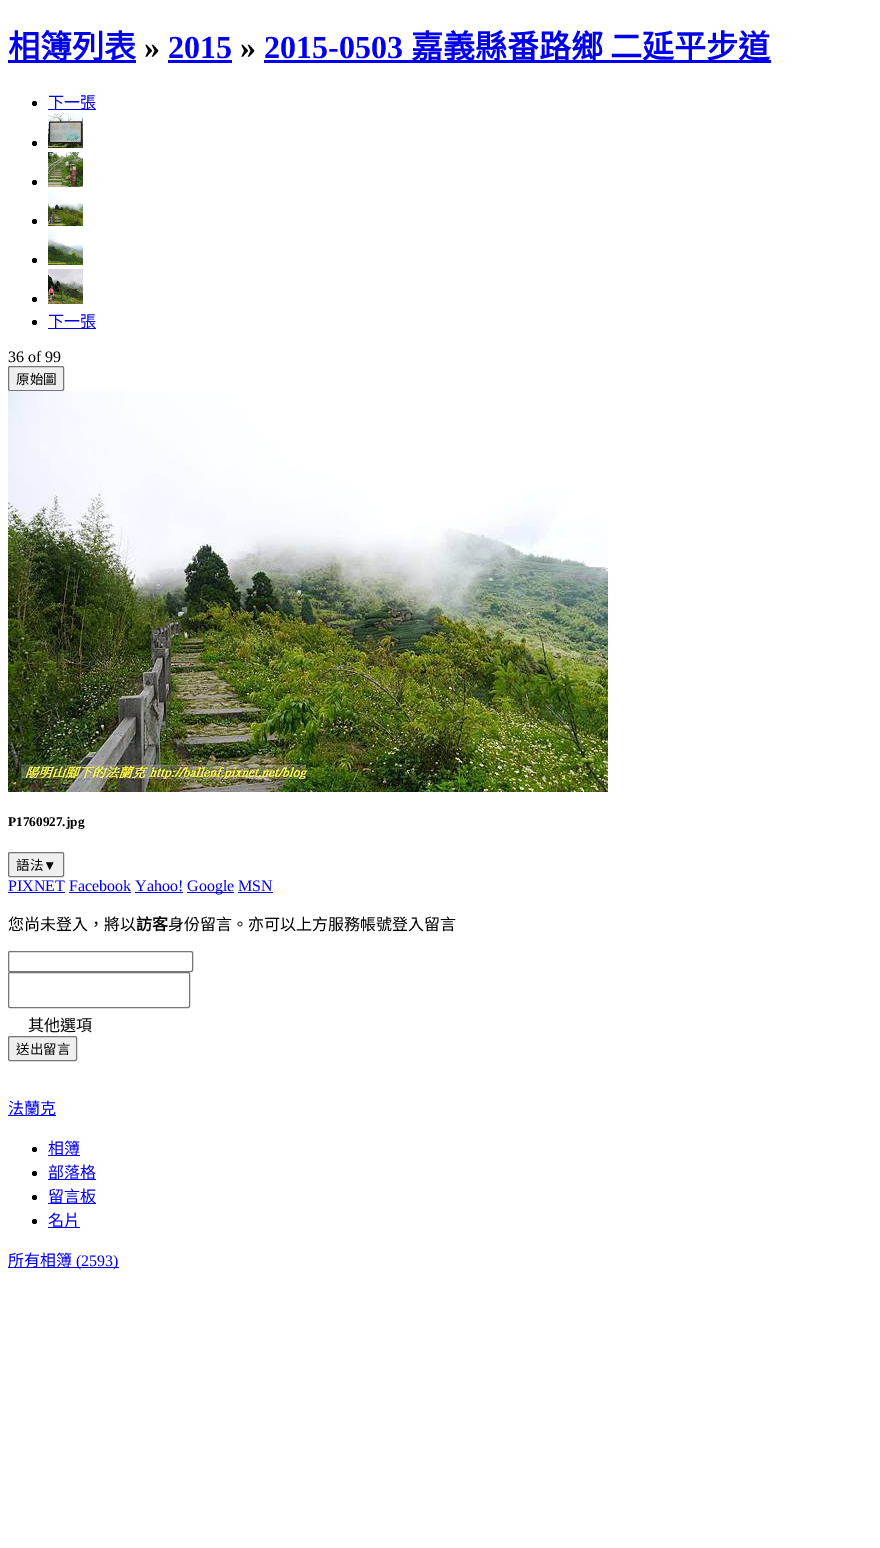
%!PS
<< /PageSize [880 1548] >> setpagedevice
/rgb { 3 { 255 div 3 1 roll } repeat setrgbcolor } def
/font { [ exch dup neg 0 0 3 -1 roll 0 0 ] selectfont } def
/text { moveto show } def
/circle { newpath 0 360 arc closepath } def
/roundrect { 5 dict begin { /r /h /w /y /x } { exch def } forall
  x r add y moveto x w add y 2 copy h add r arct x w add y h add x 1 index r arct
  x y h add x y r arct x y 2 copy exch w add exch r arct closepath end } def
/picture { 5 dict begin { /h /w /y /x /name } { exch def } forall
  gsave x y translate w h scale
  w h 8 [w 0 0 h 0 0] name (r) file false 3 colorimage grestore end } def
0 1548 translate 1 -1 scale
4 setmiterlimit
255 255 255 rgb
0 0 880 1548 rectfill
0 0 238 rgb
8 60 128 3 rectfill
168 60 64 3 rectfill
264 60 507 3 rectfill
0 0 0 rgb
34.5 103.5 2.5 circle fill
0 0 238 rgb
48 109 48 1 rectfill
0 0 0 rgb
34.5 143.5 2.5 circle fill
(img_01.rgb) 48 113 35 35 picture
34.5 182.5 2.5 circle fill
(img_02.rgb) 48 152 35 35 picture
34.5 221.5 2.5 circle fill
(img_03.rgb) 48 191 35 35 picture
34.5 260.5 2.5 circle fill
(img_04.rgb) 48 230 35 35 picture
34.5 299.5 2.5 circle fill
(img_05.rgb) 48 269 35 35 picture
34.5 322.5 2.5 circle fill
0 0 238 rgb
48 328 48 1 rectfill
239 239 239 rgb
8.5 366.5 55 24 1.5 roundrect gsave fill grestore
118 118 118 rgb
stroke
(img_06.rgb) 8 391 600 401 picture
239 239 239 rgb
8.5 852.5 55 24 1.5 roundrect gsave fill grestore
118 118 118 rgb
stroke
0 0 238 rgb
8 892 57 1 rectfill
187 892 47 1 rectfill
69 892 62 1 rectfill
135 892 48 1 rectfill
238 892 35 1 rectfill
118 118 118 rgb
8.5 951.5 184 20 1.5 roundrect stroke
8.5 972.5 181 35 1.5 roundrect stroke
239 239 239 rgb
8.5 1036.5 68 24 1.5 roundrect gsave fill grestore
118 118 118 rgb
stroke
0 0 238 rgb
8 1115 48 1 rectfill
0 0 0 rgb
34.5 1149.5 2.5 circle fill
0 0 238 rgb
48 1155 32 1 rectfill
0 0 0 rgb
34.5 1173.5 2.5 circle fill
0 0 238 rgb
48 1179 48 1 rectfill
0 0 0 rgb
34.5 1197.5 2.5 circle fill
0 0 238 rgb
48 1203 48 1 rectfill
0 0 0 rgb
34.5 1221.5 2.5 circle fill
0 0 238 rgb
48 1227 32 1 rectfill
8 1267 111 1 rectfill
/NotoSansCJKTC-Bold 32 font
(相簿列表) 8 58 text
/LiberationSerif-Bold 32 font
0 0 0 rgb
(») 144 58 text
0 0 238 rgb
(2015) 168 58 text
0 0 0 rgb
(») 240 58 text
0 0 238 rgb
(2015-0503) 264 58 text
/NotoSansCJKTC-Bold 32 font
(嘉義縣番路鄉 二延平步道) 411 58 text
/NotoSansCJKTC-Regular 16 font
(下一張) 48 108 text
(下一張) 48 327 text
/LiberationSerif-Regular 16 font
0 0 0 rgb
(36 of 99) 8 362 text
/NotoSansCJKTC-Regular 13.5 font
(原始圖) 16 384 text
/LiberationSerif-Bold 13.25 font
(P1760927.jpg) 8 826 text
/NotoSansCJKTC-Regular 13.5 font
(語法) 16 870 text
/LiberationSans-Regular 13.5 font
(▼) 43 870 text
/LiberationSerif-Regular 16 font
0 0 238 rgb
(PIXNET Facebook Yahoo!) 8 891 text
(Google MSN) 187 891 text
/NotoSansCJKTC-Regular 16 font
0 0 0 rgb
(您尚未登入，將以) 8 930 text
/NotoSansCJKTC-Bold 16 font
(訪客) 136 930 text
/NotoSansCJKTC-Regular 16 font
(身份留言。亦可以上方服務帳號登入留言) 168 930 text
(其他選項) 28 1031 text
/NotoSansCJKTC-Regular 13.5 font
(送出留言) 16 1054 text
/NotoSansCJKTC-Regular 16 font
0 0 238 rgb
(法蘭克) 8 1114 text
(相簿) 48 1154 text
(部落格) 48 1178 text
(留言板) 48 1202 text
(名片) 48 1226 text
(所有相簿) 8 1266 text
/LiberationSerif-Regular 16 font
(\(2593\)) 76 1266 text
showpage
